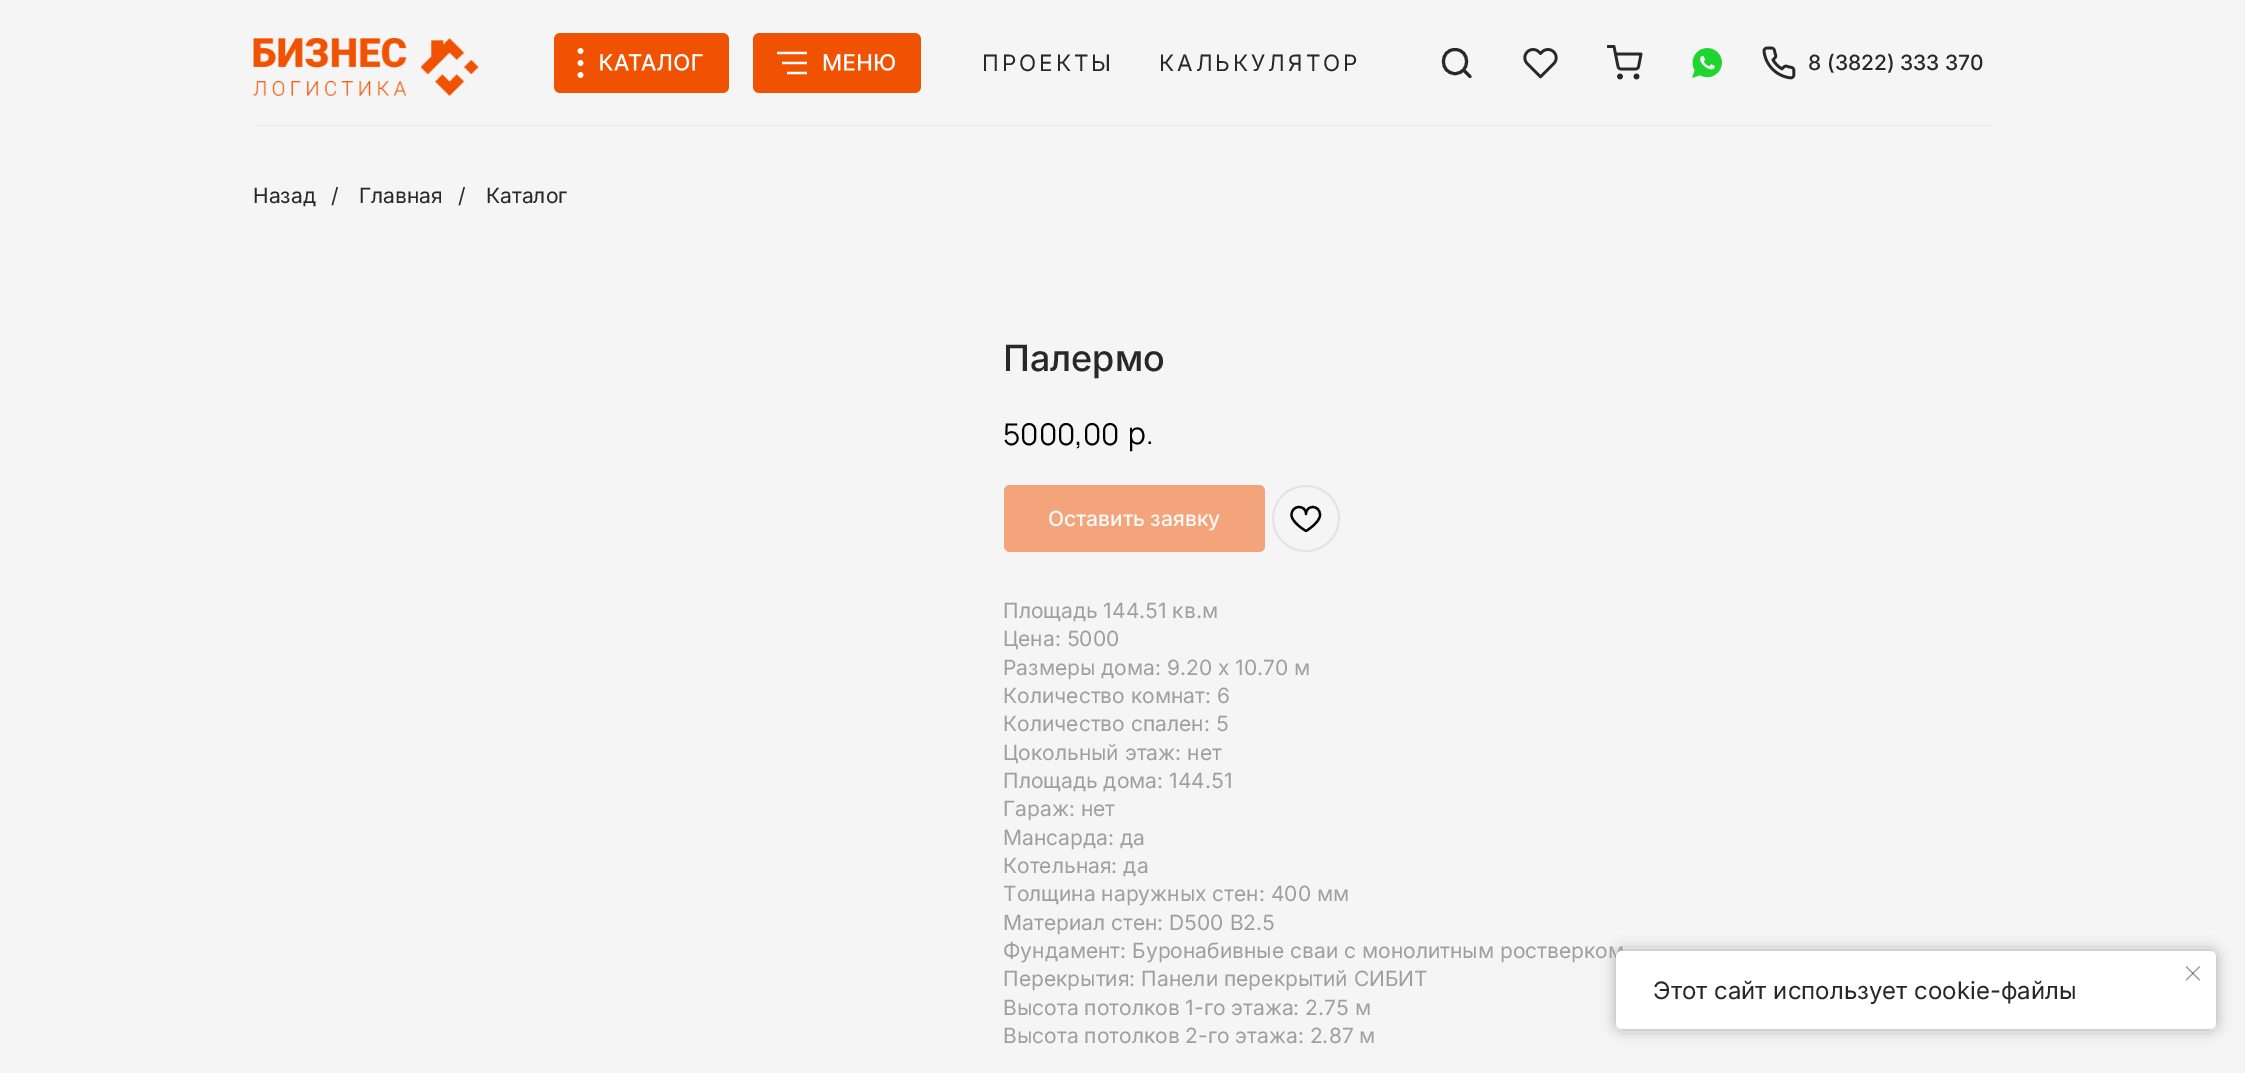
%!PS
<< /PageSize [2245 1073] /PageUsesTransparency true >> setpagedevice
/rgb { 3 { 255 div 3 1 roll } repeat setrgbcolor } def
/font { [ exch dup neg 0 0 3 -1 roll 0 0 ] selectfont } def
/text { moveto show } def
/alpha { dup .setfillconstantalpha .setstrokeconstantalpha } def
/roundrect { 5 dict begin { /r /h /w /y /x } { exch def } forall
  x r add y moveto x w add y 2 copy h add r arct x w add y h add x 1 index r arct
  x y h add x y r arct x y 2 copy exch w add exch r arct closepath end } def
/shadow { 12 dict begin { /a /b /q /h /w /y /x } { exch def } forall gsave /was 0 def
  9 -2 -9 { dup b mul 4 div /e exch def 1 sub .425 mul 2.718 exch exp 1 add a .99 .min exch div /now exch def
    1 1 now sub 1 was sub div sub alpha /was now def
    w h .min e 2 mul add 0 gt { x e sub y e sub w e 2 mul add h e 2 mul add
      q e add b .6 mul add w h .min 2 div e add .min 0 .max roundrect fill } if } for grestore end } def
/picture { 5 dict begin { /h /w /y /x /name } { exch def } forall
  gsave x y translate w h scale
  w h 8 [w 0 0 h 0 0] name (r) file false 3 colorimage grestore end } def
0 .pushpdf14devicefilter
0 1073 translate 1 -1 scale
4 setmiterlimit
245 245 245 rgb
0 0 2245 1073 rectfill
(img_01.rgb) 253 38 226 58 picture
(img_02.rgb) 554 33 175 60 picture
(img_03.rgb) 753 33 168 60 picture
40 40 40 rgb
3 setlinewidth
1 setlinecap
1 setlinejoin
1455 73.5 moveto 15.5 0 15.5 -24 0 -24 rcurveto -15.5 0 -15.5 24 0 24 rcurveto closepath 1470 76.5 moveto -6.5 -6.5 rlineto stroke
(img_04.rgb) 1523 48 35 31 picture
(img_05.rgb) 1607 45 36 35 picture
(img_06.rgb) 1692 48 30 30 picture
(img_07.rgb) 1762 46 34 34 picture
233 233 233 rgb
254 125 1740 1 rectfill
243 164 123 rgb
1004 485 261 67 6 roundrect fill
228 228 228 rgb
2 setlinewidth
0 setlinecap
0 setlinejoin
1273 486 66 65 32.5 roundrect stroke
0 0 0 rgb
2.2 setlinewidth
1 setlinejoin
1320 515 moveto 0 7.5 -14 16 -14 16 rcurveto 0 0 -14.5 -8.5 -14.5 -16 rcurveto 0 -10.5 14.5 -10.5 14.5 -1 rcurveto 0 -9.5 14 -9.5 14 1 rcurveto closepath stroke
1616 951 600 78 6 7.5 0.3 shadow
/Inter-Regular 22.5 font
40 40 40 rgb
982 71 moveto 3 0 (ПРОЕКТЫ) ashow
1159 71 moveto 3 0 (КАЛЬКУЛЯТОР) ashow
/Inter-Medium 21 font
(8 \(3822\) 333 370) 1808 70 text
/Inter-Regular 21 font
(Назад) 253 203 text
(/) 331 203 text
(Главная) 359 203 text
(/) 458 203 text
(Каталог) 486 203 text
/Inter-Medium 36 font
(Палермо) 1003 371 text
/Manrope-Regular 30 font
0 0 0 rgb
(5000,00) 1003 445 text
(р.) 1128 444 text
/Inter-Medium 21 font
249 249 249 rgb
(Оставить заявку) 1048 526 text
/Inter-Regular 21 font
161 158 158 rgb
(Площадь 144.51 кв.м) 1003 618 text
(Цена: 5000) 1003 646 text
(Размеры дома: 9.20 х 10.70 м) 1003 675 text
(Количество комнат: 6) 1003 703 text
(Количество спален: 5) 1003 731 text
(Цокольный этаж: нет) 1003 760 text
(Площадь дома: 144.51) 1003 788 text
(Гараж: нет) 1003 816 text
(Мансарда: да) 1003 845 text
(Котельная: да) 1003 873 text
(Толщина наружных стен: 400 мм) 1003 901 text
(Материал стен: D500 B2.5) 1003 930 text
(Фундамент: Буронабивные сваи с монолитным ростверком) 1003 958 text
(Перекрытия: Панели перекрытий СИБИТ) 1003 986 text
(Высота потолков 1-го этажа: 2.75 м) 1003 1015 text
(Высота потолков 2-го этажа: 2.87 м) 1003 1043 text
255 255 255 rgb
1616 951 600 78 6 roundrect fill
(img_08.rgb) 2186 966 15 15 picture
/Inter-Regular 24 font
40 40 40 rgb
(Этот сайт использует cookie-файлы) 1653 999 text
.poppdf14devicefilter showpage
